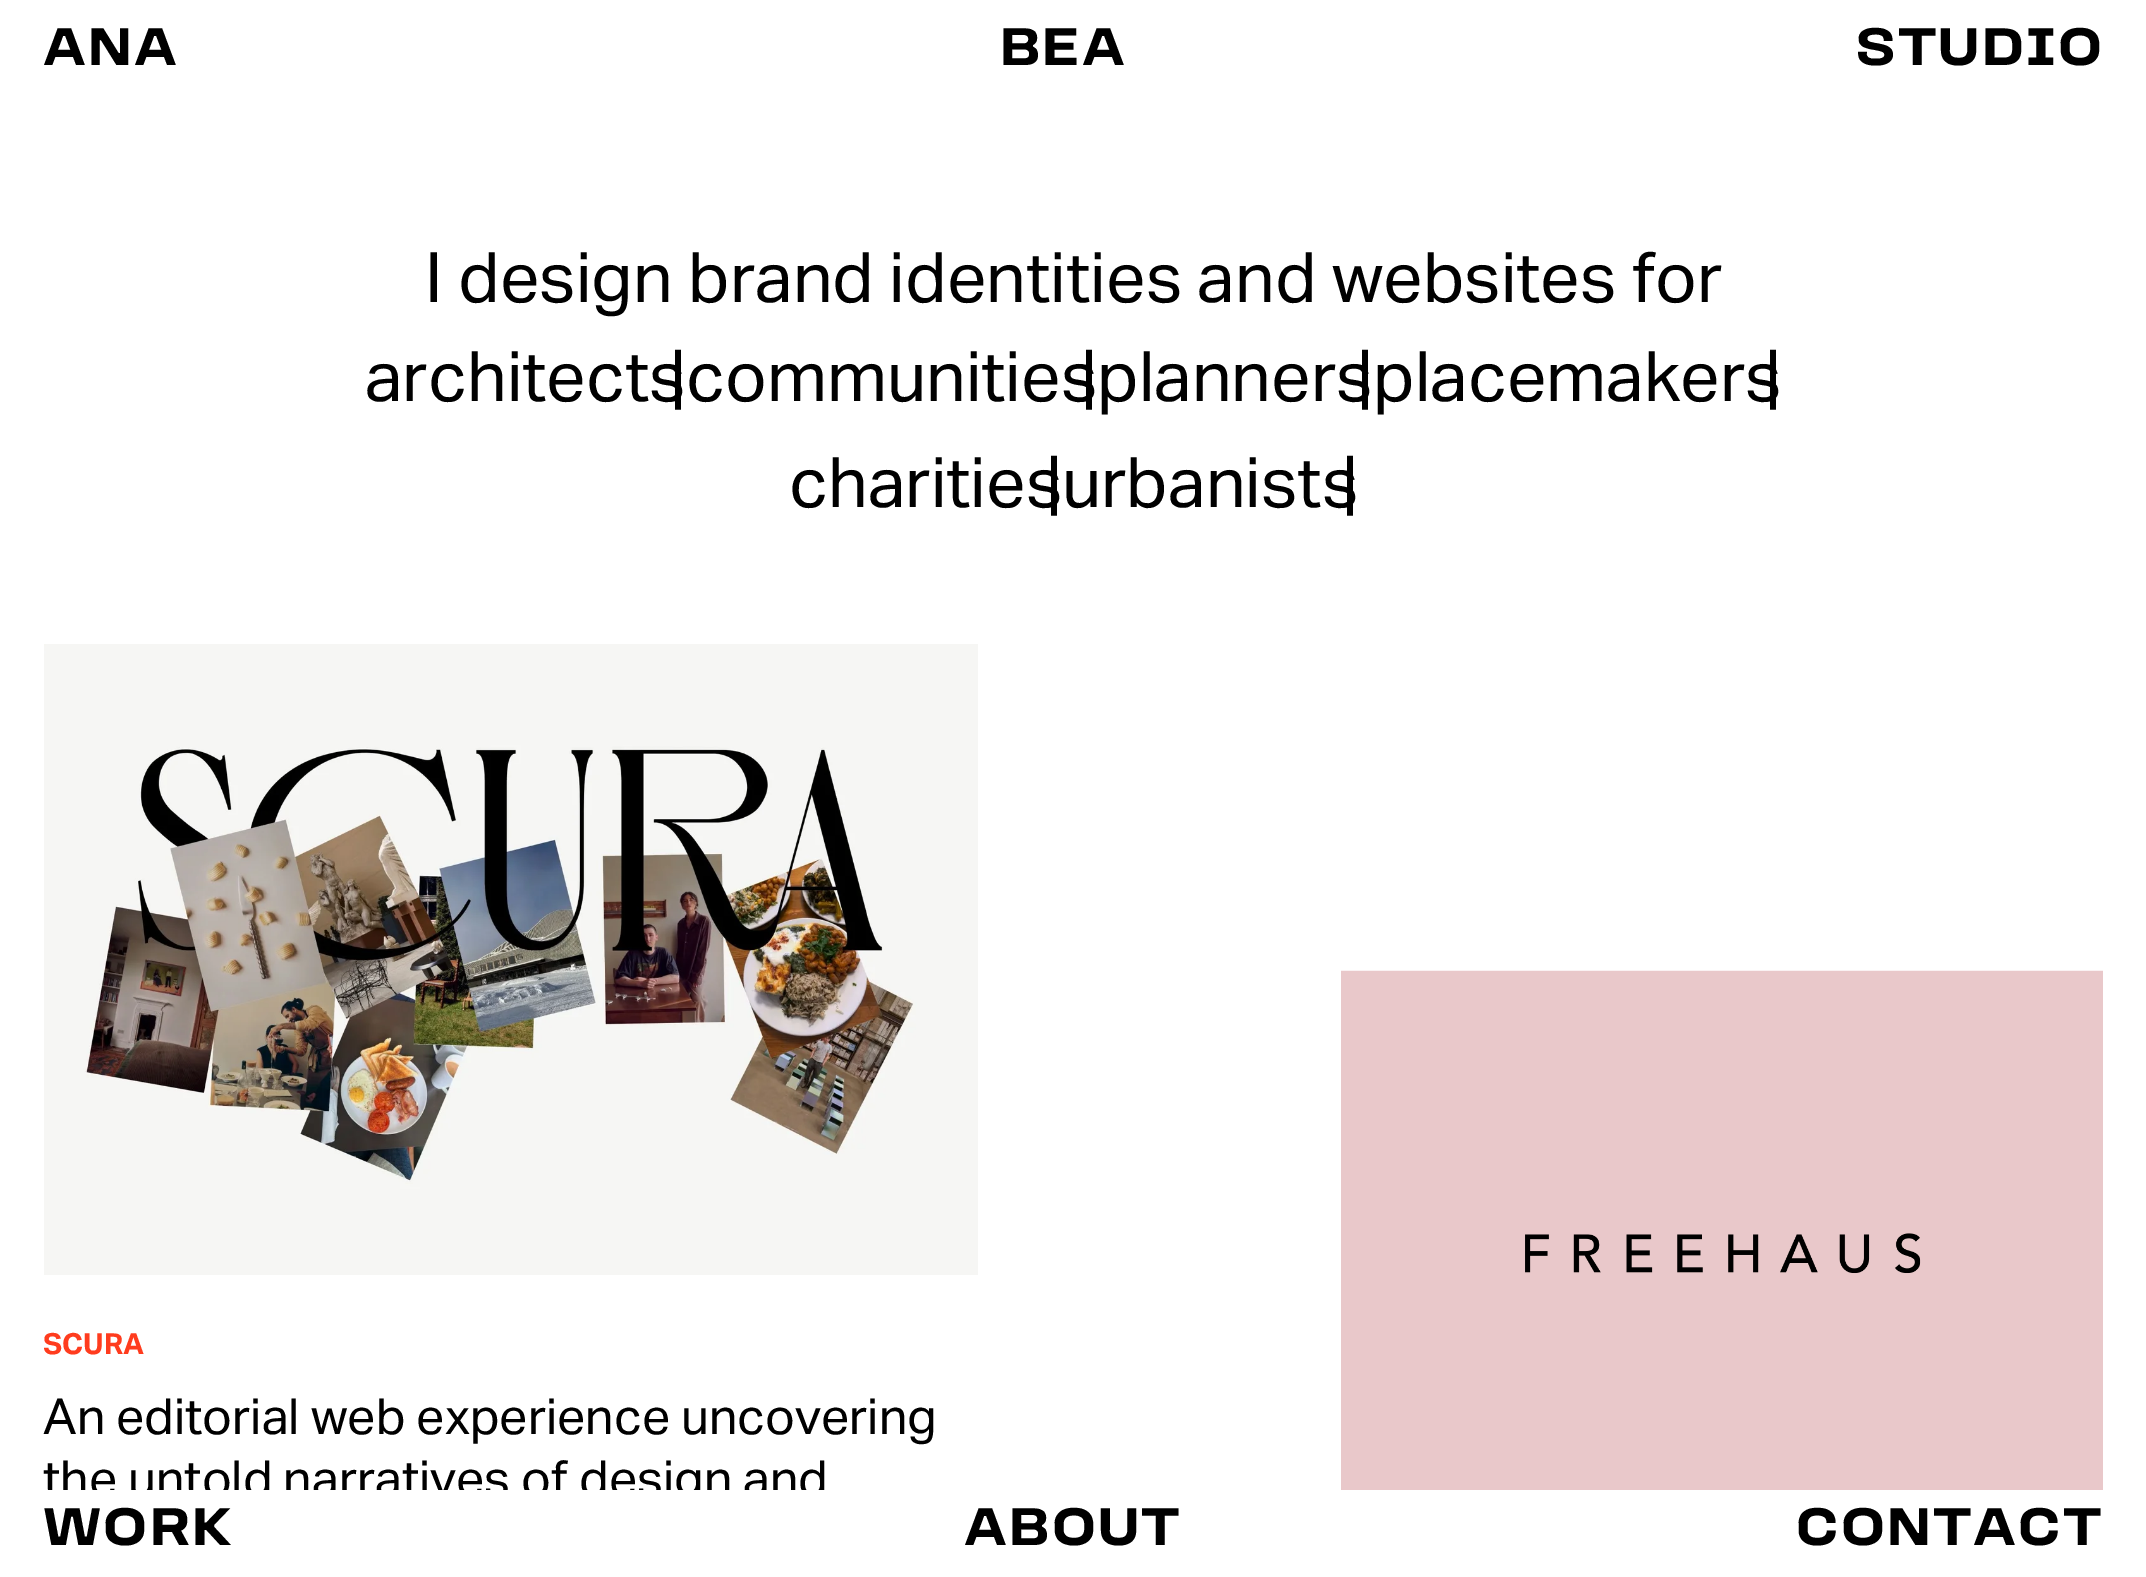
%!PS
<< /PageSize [2146 1577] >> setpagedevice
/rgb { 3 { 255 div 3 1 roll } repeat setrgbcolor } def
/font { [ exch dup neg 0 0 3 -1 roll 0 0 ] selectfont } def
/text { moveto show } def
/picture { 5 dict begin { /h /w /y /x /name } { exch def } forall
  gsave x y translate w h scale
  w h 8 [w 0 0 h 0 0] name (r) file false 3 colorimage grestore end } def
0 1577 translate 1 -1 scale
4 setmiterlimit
255 255 255 rgb
0 0 2146 1577 rectfill
(img_01.rgb) 44 644 934 631 picture
(img_02.rgb) 1341 970 762 520 picture
/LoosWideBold-Bold 54.9 font
0 0 0 rgb
43 65 moveto 77.4 0 32 2.2 0 (ANA         BEA        STUDIO) awidthshow
/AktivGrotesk-Regular 69.7 font
(I design brand identities and websites for) 425 302 text
(architects) 365 401 text
(|communities) 670 401 text
(|planners) 1081 401 text
(|placemakers) 1357 401 text
(|) 1765 401 text
(charities) 789 507 text
(|urbanists) 1046 507 text
(|) 1342 507 text
/AktivGrotesk-Bold 29 font
255 60 30 rgb
(SCURA) 43 1354 text
/AktivGrotesk-Regular 49.75 font
0 0 0 rgb
(An editorial web experience uncovering) 43 1434 text
(the untold narratives of design and) 43 1496 text
255 255 255 rgb
47 1490 778 17 rectfill
/LoosWideBold-Bold 54.9 font
0 0 0 rgb
43 1545 moveto 2.2 0 (WORK) ashow
964 1545 moveto 2.2 0 (ABOUT) ashow
1796 1545 moveto 2.2 0 (CONTACT) ashow
showpage
